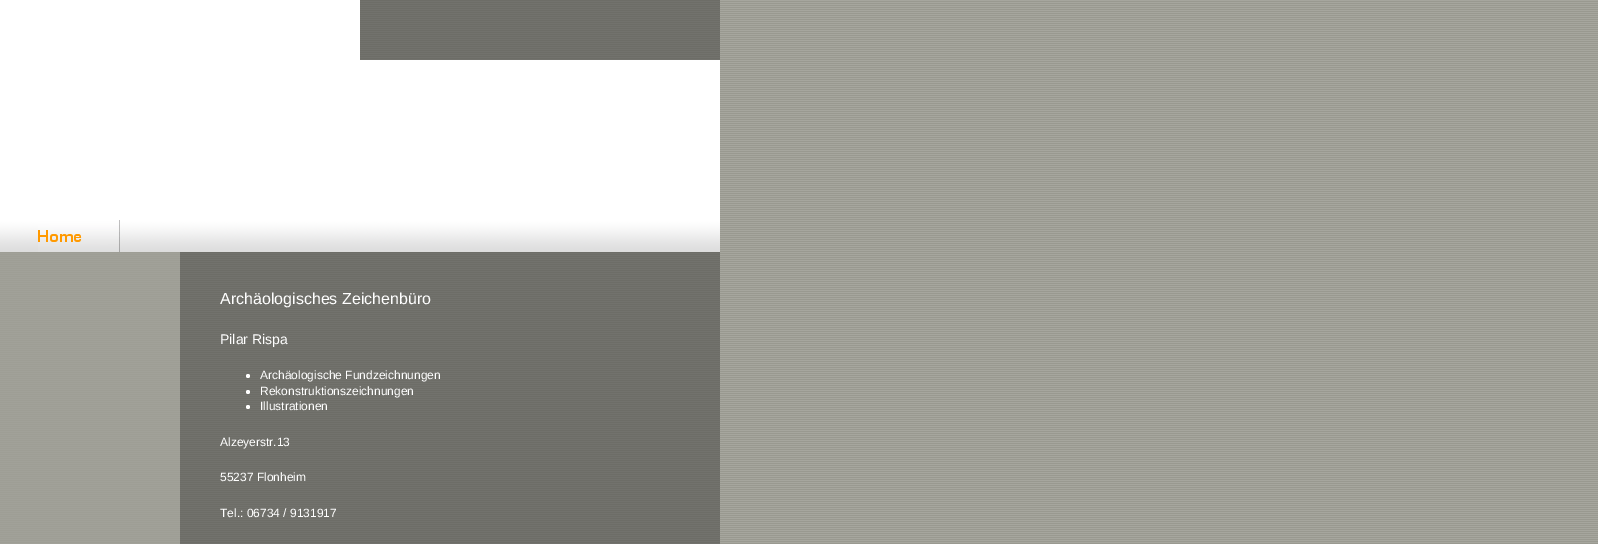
%!PS
<< /PageSize [1598 544] >> setpagedevice
/rgb { 3 { 255 div 3 1 roll } repeat setrgbcolor } def
/font { [ exch dup neg 0 0 3 -1 roll 0 0 ] selectfont } def
/text { moveto show } def
/circle { newpath 0 360 arc closepath } def
/picture { 5 dict begin { /h /w /y /x /name } { exch def } forall
  gsave x y translate w h scale
  w h 8 [w 0 0 h 0 0] name (r) file false 3 colorimage grestore end } def
0 544 translate 1 -1 scale
4 setmiterlimit
255 255 255 rgb
0 0 1598 544 rectfill
(img_01.rgb) 720 0 878 544 picture
(img_02.rgb) 0 0 720 544 picture
0 0 360 60 rectfill
0 60 720 160 rectfill
(img_03.rgb) 0 220 720 32 picture
(img_04.rgb) 38 220 82 32 picture
248 376 2 circle fill
248 392 2 circle fill
248 407 2 circle fill
/LiberationSans-Regular 16 font
(Archäologisches Zeichenbüro) 220 304 text
/LiberationSans-Regular 14 font
(Pilar Rispa) 220 344 text
/LiberationSans-Regular 12 font
(Archäologische Fundzeichnungen) 260 379 text
(Rekonstruktionszeichnungen) 260 395 text
(Illustrationen) 260 410 text
(Alzeyerstr.13) 220 446 text
(55237 Flonheim) 220 481 text
(Tel.: 06734 / 9131917) 220 517 text
showpage
